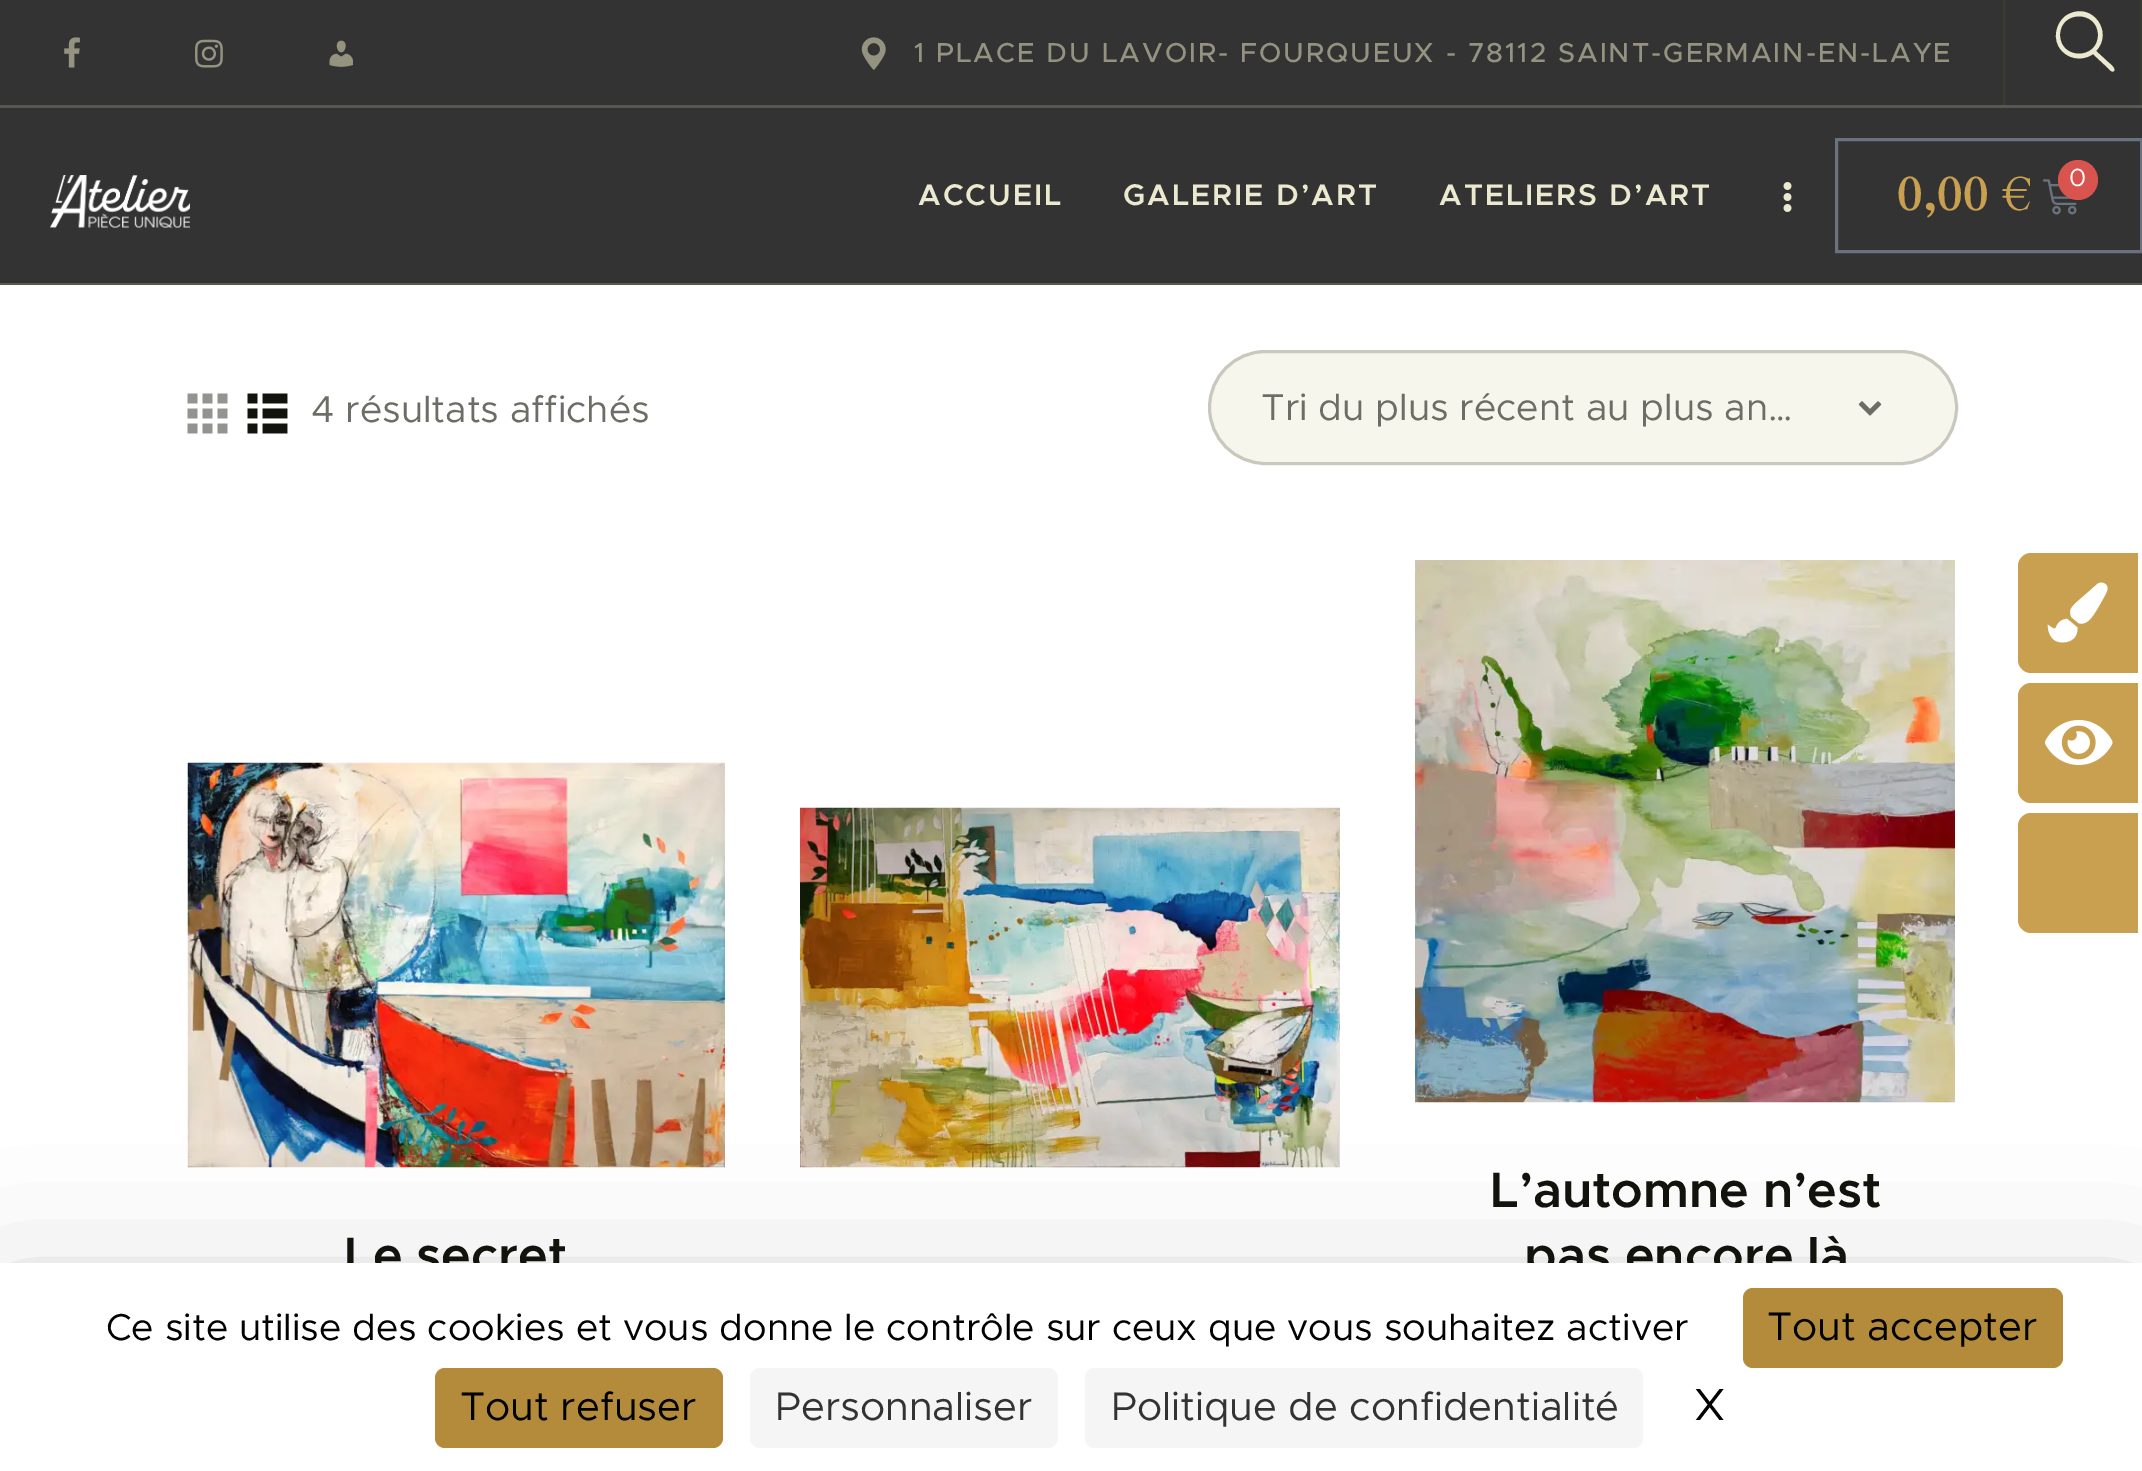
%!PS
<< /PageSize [2142 1471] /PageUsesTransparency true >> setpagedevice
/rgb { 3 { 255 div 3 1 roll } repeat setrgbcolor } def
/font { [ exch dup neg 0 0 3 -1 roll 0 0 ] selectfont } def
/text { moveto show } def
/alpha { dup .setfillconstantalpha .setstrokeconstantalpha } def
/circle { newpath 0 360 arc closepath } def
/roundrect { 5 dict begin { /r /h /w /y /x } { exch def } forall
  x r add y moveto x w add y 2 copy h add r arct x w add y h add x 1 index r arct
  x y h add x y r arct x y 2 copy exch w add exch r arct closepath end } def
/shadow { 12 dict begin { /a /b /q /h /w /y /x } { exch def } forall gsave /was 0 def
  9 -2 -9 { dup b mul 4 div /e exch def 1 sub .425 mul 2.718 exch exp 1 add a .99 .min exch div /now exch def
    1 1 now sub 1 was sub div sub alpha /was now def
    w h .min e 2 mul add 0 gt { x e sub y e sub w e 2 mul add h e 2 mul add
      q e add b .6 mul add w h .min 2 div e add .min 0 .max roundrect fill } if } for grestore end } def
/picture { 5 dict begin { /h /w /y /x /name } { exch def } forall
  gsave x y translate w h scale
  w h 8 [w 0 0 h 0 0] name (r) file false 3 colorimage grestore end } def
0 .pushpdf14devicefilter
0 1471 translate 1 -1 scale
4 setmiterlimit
255 255 255 rgb
0 0 2142 1471 rectfill
251 251 245 rgb
0 285 2142 1 rectfill
51 51 51 rgb
0 0 2140 105 rectfill
(img_01.rgb) 64 37 16 31 picture
(img_02.rgb) 195 39 28 29 picture
(img_03.rgb) 329 40 24 27 picture
(img_04.rgb) 861 37 25 33 picture
59 58 49 rgb
2140 0 2 105 rectfill
2003 0 3 105 rectfill
235 233 207 rgb
2096 51 moveto 18 -19 -4 -49 -27 -37 rcurveto -5 2 -9 7 -11 12 rcurveto -3 7 -3 14 1 21 rcurveto 7 12 23 15 34 7 rcurveto 15 14 rlineto 1 1 4 5 6 3 rcurveto 2 -3 -5 -8 -6 -9 rcurveto closepath 2060 35 moveto 0 -25 38 -25 38 0 rcurveto 0 25 -38 25 -38 0 rcurveto closepath fill
51 51 51 rgb
0 108 2142 175 rectfill
88 87 82 rgb
0 283 2142 2 rectfill
0 105 2142 3 rectfill
(img_05.rgb) 50 175 140 53 picture
(img_06.rgb) 1783 182 9 30 picture
105 114 125 rgb
3 setlinewidth
1836.5 139.5 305 112 rectstroke
(img_07.rgb) 2042 179 35 36 picture
217 83 79 rgb
2078 180 20 circle fill
(img_08.rgb) 187 393 41 41 picture
(img_09.rgb) 247 393 41 41 picture
247 246 236 rgb
1209.5 351.5 747 112 56 roundrect gsave fill grestore
201 200 191 rgb
stroke
(img_10.rgb) 1858 401 24 15 picture
(img_11.rgb) 800 807 540 361 picture
(img_12.rgb) 187 762 538 406 picture
(img_13.rgb) 1415 560 540 543 picture
201 160 80 rgb
2031 553 moveto 107 0 rlineto 0 120 rlineto -107 0 rlineto -7 0 -13 -6 -13 -13 rcurveto 0 -94 rlineto 0 -7 6 -13 13 -13 rcurveto closepath fill
(img_14.rgb) 2047 582 61 61 picture
2031 683 moveto 107 0 rlineto 0 120 rlineto -107 0 rlineto -7 0 -13 -6 -13 -13 rcurveto 0 -94 rlineto 0 -7 6 -13 13 -13 rcurveto closepath fill
(img_15.rgb) 2045 720 68 45 picture
2031 813 moveto 107 0 rlineto 0 120 rlineto -107 0 rlineto -7 0 -13 -6 -13 -13 rcurveto 0 -94 rlineto 0 -7 6 -13 13 -13 rcurveto closepath fill
0 0 0 rgb
0 1313 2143 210 0 75 0.25 shadow
/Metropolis-Medium 27.5 font
148 147 128 rgb
914 62 moveto 2 0 (1 PLACE DU LAVOIR- FOURQUEUX - 78112 SAINT-GERMAIN-EN-LAYE) ashow
/Metropolis-SemiBold 30 font
235 233 207 rgb
918 205 moveto 2 0 (ACCUEIL) ashow
1123 205 moveto 2 0 (GALERIE D’ART) ashow
1439 205 moveto 2 0 (ATELIERS D’ART) ashow
/Cardo-Bold 50 font
201 160 80 rgb
(0,00 €) 1897 210 text
/Metropolis-Regular 25 font
255 255 255 rgb
(0) 2069 186 text
/Metropolis-Regular 37.5 font
109 109 101 rgb
(4 résultats affichés) 311 422 text
(Tri du plus récent au plus an…) 1261 420 text
/Metropolis-SemiBold 50 font
19 19 13 rgb
(Le secret) 344 1272 text
(L’automne n’est) 1490 1207 text
(pas encore là) 1524 1272 text
255 255 255 rgb
0 1263 2142 208 rectfill
/Metropolis-Regular 37.5 font
0 0 0 rgb
(Ce site utilise des cookies et vous donne le contrôle sur ceux que vous souhaitez activer) 106 1340 text
179 139 59 rgb
1743 1288 320 80 10 roundrect fill
/Metropolis-Regular 40 font
0 0 0 rgb
(Tout accepter) 1767 1340 text
179 139 59 rgb
435 1368 288 80 10 roundrect fill
0 0 0 rgb
(Tout refuser) 460 1420 text
245 245 245 rgb
750 1368 308 80 10 roundrect fill
51 51 51 rgb
(Personnaliser) 775 1420 text
245 245 245 rgb
1085 1368 558 80 10 roundrect fill
51 51 51 rgb
(Politique de confidentialité) 1111 1420 text
/Metropolis-Regular 45 font
0 0 0 rgb
(X) 1694 1420 text
.poppdf14devicefilter showpage
